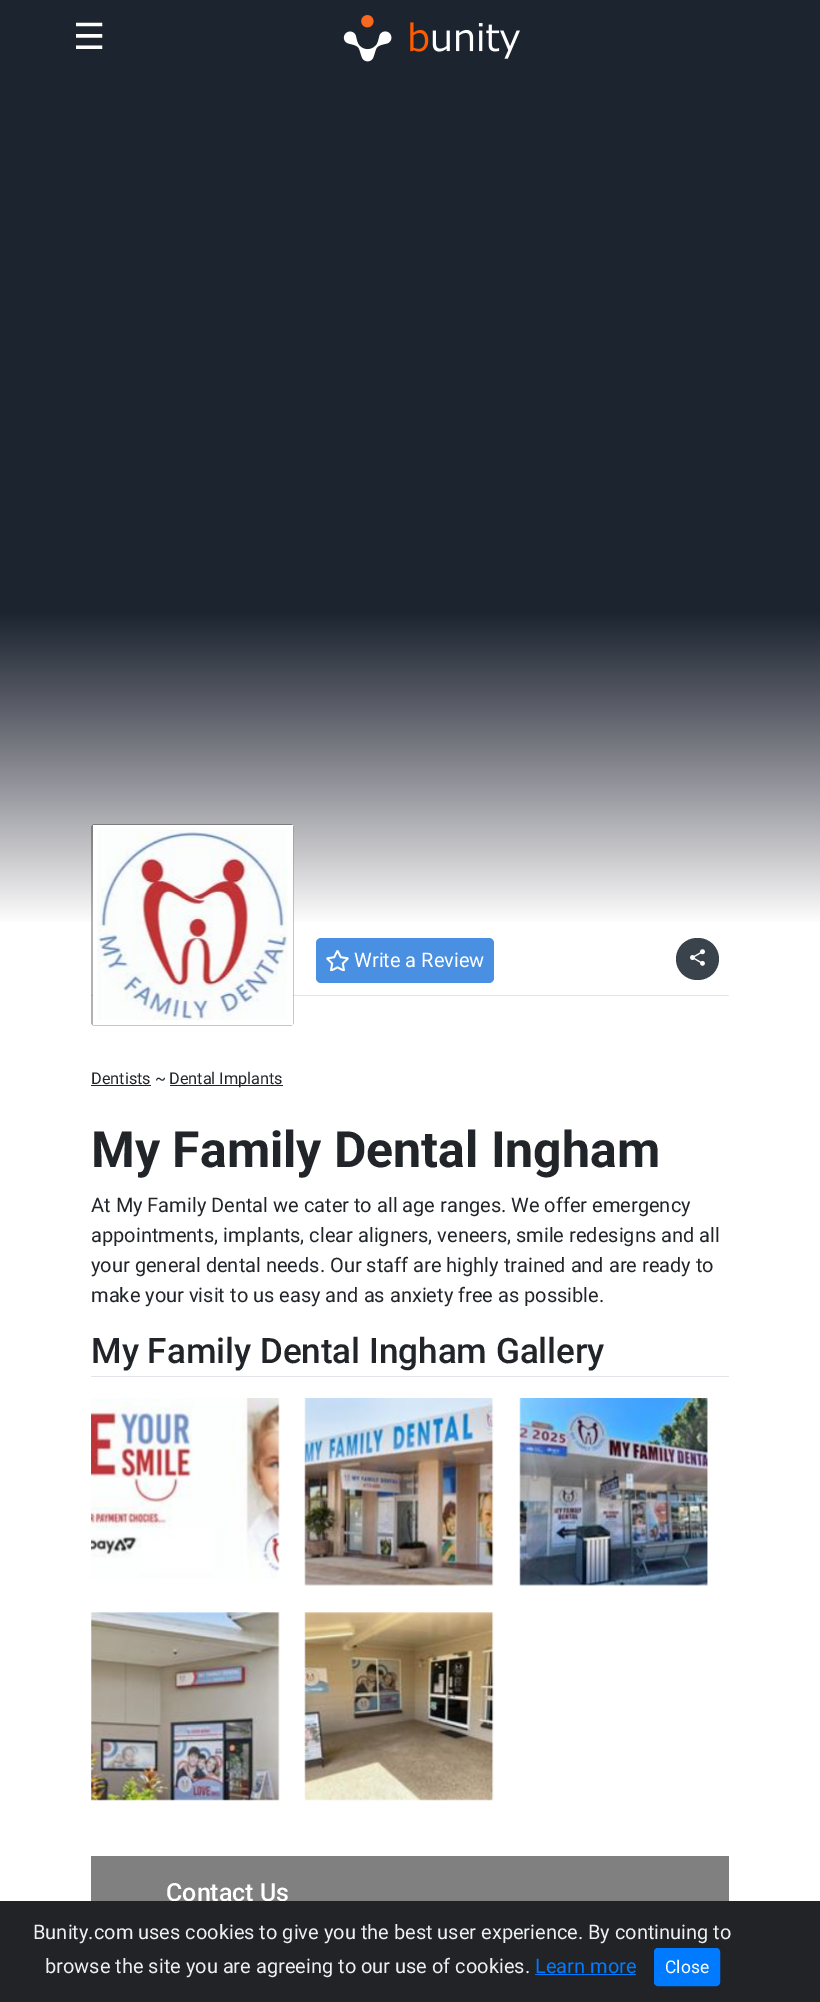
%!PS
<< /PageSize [820 2002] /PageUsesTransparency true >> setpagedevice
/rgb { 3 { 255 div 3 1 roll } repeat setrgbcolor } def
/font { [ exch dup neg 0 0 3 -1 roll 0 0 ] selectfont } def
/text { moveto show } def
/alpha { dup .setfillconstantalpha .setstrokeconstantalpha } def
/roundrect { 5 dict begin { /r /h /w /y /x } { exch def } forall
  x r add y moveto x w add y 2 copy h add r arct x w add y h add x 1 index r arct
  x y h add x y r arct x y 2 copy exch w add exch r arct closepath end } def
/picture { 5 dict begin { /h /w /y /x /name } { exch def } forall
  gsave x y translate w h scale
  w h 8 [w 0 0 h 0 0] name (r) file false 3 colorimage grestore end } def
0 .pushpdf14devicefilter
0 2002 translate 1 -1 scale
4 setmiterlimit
255 255 255 rgb
0 0 820 2002 rectfill
27 36 47 rgb
0 0 820 613 rectfill
(img_01.rgb) 343 15 177 47 picture
gsave 0 613 moveto 820 0 rlineto 0 309 rlineto -820 0 rlineto closepath clip newpath
<< /ShadingType 2 /ColorSpace /DeviceRGB /Coords [410 612 410 925] /Extend [true true] /Function << /FunctionType 3 /Domain [0 1] /Functions [<< /FunctionType 2 /Domain [0 1] /C0 [0.106 0.141 0.184] /C1 [0.31 0.325 0.365] /N 1 >> << /FunctionType 2 /Domain [0 1] /C0 [0.31 0.325 0.365] /C1 [0.529 0.533 0.565] /N 1 >> << /FunctionType 2 /Domain [0 1] /C0 [0.529 0.533 0.565] /C1 [0.761 0.761 0.776] /N 1 >> << /FunctionType 2 /Domain [0 1] /C0 [0.761 0.761 0.776] /C1 [1 1 1] /N 1 >>] /Bounds [0.25 0.5 0.75] /Encode [0 1 0 1 0 1 0 1] >> >> shfill grestore
228 229 234 rgb
91 995 638 1 rectfill
0.3 alpha
0 0 0 rgb
91 824 203 202 4 roundrect fill
1 alpha
255 255 255 rgb
95.5 827.5 moveto 195 0 rlineto 0 195 rlineto -195 0 rlineto closepath gsave fill grestore
5 setlinewidth
stroke
(img_02.rgb) 97 830 191 190 picture
74 144 226 rgb
316 938 178 45 5 roundrect fill
(img_03.rgb) 326 950 23 21 picture
58 66 76 rgb
676 938 43 42 21 roundrect fill
(img_04.rgb) 690 949 15 17 picture
33 37 41 rgb
91 1085 60 1 rectfill
170 1085 113 1 rectfill
228 229 234 rgb
91 1376 638 1 rectfill
(img_05.rgb) 91 1398 189 181 picture
(img_06.rgb) 304 1398 190 188 picture
(img_07.rgb) 519 1398 189 188 picture
(img_08.rgb) 91 1612 189 189 picture
(img_09.rgb) 304 1612 190 189 picture
128 128 128 rgb
91 1856 638 45 rectfill
/DejaVuSans-Regular 36 font
255 255 255 rgb
(☰) 73 49 text
/Roboto-Regular 20 font
(Write a Review) 354 967 text
/Roboto-Regular 16.25 font
33 37 41 rgb
(Dentists ~) 91 1084 text
(Dental Implants) 169 1084 text
/Roboto-Bold 50 font
(My Family Dental Ingham) 91 1167 text
/Roboto-Regular 20 font
(At My Family Dental we cater to all age ranges. We offer emergency) 91 1212 text
(appointments, implants, clear aligners, veneers, smile redesigns and all) 91 1242 text
(your general dental needs. Our staff are highly trained and are ready to) 91 1272 text
(make your visit to us easy and as anxiety free as possible.) 91 1302 text
/Roboto-Medium 35 font
(My Family Dental Ingham Gallery) 91 1363 text
/Roboto-Medium 25 font
255 255 255 rgb
(Contact Us) 166 1901 text
33 35 39 rgb
0 1901 820 101 rectfill
/Roboto-Regular 20 font
236 240 241 rgb
(Bunity.com uses cookies to give you the best user experience. By continuing to) 33 1939 text
(browse the site you are agreeing to our use of cookies.) 45 1973 text
0 123 255 rgb
(Learn more) 535 1973 text
535 1974 101 1 rectfill
654.5 1948.5 65 37 3.5 roundrect gsave fill grestore
1 setlinewidth
stroke
/Roboto-Regular 17.5 font
255 255 255 rgb
(Close) 665 1973 text
.poppdf14devicefilter showpage
